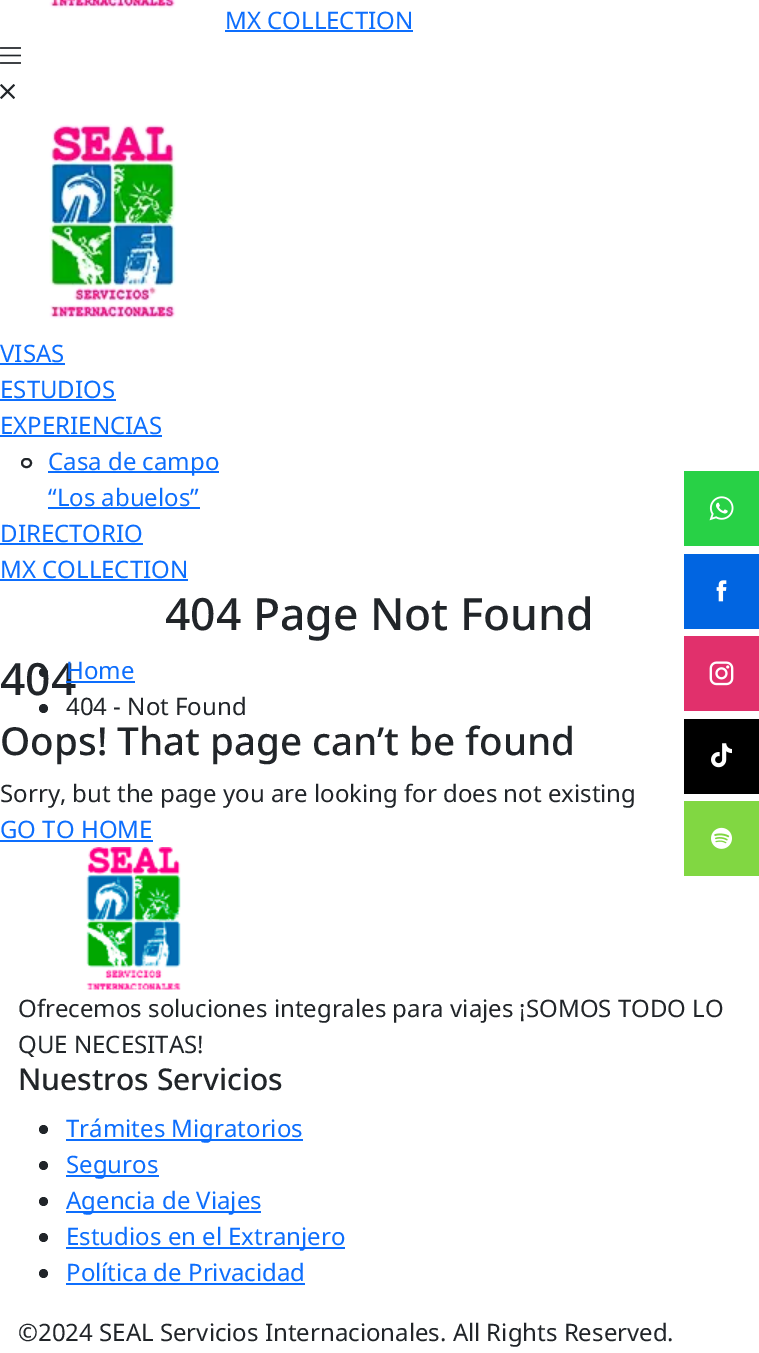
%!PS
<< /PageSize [759 1353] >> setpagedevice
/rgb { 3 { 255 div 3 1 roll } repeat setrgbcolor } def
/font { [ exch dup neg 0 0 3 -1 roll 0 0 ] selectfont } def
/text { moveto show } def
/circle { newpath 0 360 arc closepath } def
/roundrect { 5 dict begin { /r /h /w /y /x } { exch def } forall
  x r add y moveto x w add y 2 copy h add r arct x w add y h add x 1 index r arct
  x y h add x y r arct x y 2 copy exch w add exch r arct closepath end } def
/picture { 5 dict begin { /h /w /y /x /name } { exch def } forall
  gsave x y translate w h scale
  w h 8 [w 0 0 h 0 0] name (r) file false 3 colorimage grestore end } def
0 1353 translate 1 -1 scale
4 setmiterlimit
255 255 255 rgb
0 0 759 1353 rectfill
(img_01.rgb) 49 0 127 9 picture
13 110 253 rgb
225 30 188 2 rectfill
(img_02.rgb) 0 47 21 17 picture
(img_03.rgb) 0 84 15 15 picture
(img_04.rgb) 49 124 127 195 picture
0 363 65 2 rectfill
0 399 116 2 rectfill
0 435 162 2 rectfill
33 37 41 rgb
2 setlinewidth
22 459 9 8 4 roundrect stroke
13 110 253 rgb
48 471 171 2 rectfill
48 507 152 2 rectfill
0 543 143 2 rectfill
0 579 188 2 rectfill
33 37 41 rgb
43.5 672.5 4.5 circle fill
43.5 708.5 4.5 circle fill
13 110 253 rgb
0 840 153 2 rectfill
(img_05.rgb) 86 847 95 143 picture
33 37 41 rgb
43.5 1129.5 4.5 circle fill
13 110 253 rgb
66 1139 237 2 rectfill
33 37 41 rgb
43.5 1165.5 4.5 circle fill
13 110 253 rgb
66 1175 93 2 rectfill
33 37 41 rgb
43.5 1201.5 4.5 circle fill
13 110 253 rgb
66 1211 195 2 rectfill
33 37 41 rgb
43.5 1237.5 4.5 circle fill
13 110 253 rgb
66 1247 279 2 rectfill
33 37 41 rgb
43.5 1273.5 4.5 circle fill
13 110 253 rgb
66 1283 239 2 rectfill
40 209 70 rgb
684 471 75 75 rectfill
(img_06.rgb) 709 496 25 25 picture
1 101 225 rgb
684 554 75 75 rectfill
(img_07.rgb) 716 580 11 22 picture
225 48 108 rgb
684 636 75 75 rectfill
(img_08.rgb) 709 661 25 25 picture
0 0 0 rgb
684 719 75 75 rectfill
(img_09.rgb) 711 743 21 25 picture
129 215 66 rgb
684 801 75 75 rectfill
(img_10.rgb) 711 827 21 22 picture
/NotoSans-Regular 24 font
13 110 253 rgb
(MX COLLECTION) 225 29 text
(VISAS) 0 362 text
(ESTUDIOS) 0 398 text
(EXPERIENCIAS) 0 434 text
(Casa de campo) 48 470 text
(“Los abuelos”) 48 506 text
(DIRECTORIO) 0 542 text
(MX COLLECTION) 0 578 text
/NotoSans-Medium 44.4 font
33 37 41 rgb
(404 Page Not Found) 165 630 text
/NotoSans-Regular 24 font
(404 - Not Found) 66 715 text
/NotoSans-Medium 44.4 font
(404) 0 695 text
/NotoSans-Regular 24 font
13 110 253 rgb
(Home) 66 679 text
66 681 69 2 rectfill
/NotoSans-Medium 38.6 font
33 37 41 rgb
(Oops! That page can’t be found) 0 755 text
/NotoSans-Regular 24 font
(Sorry, but the page you are looking for does not existing) 0 802 text
13 110 253 rgb
(GO TO HOME) 0 838 text
33 37 41 rgb
(Ofrecemos soluciones integrales para viajes ¡SOMOS TODO LO) 18 1017 text
(QUE NECESITAS!) 18 1053 text
/NotoSans-Medium 30 font
(Nuestros Servicios) 18 1090 text
/NotoSans-Regular 24 font
13 110 253 rgb
(Trámites Migratorios) 66 1137 text
(Seguros) 66 1173 text
(Agencia de Viajes) 66 1209 text
(Estudios en el Extranjero) 66 1245 text
(Política de Privacidad) 66 1281 text
33 37 41 rgb
(©2024 SEAL Servicios Internacionales. All Rights Reserved.) 18 1341 text
showpage
